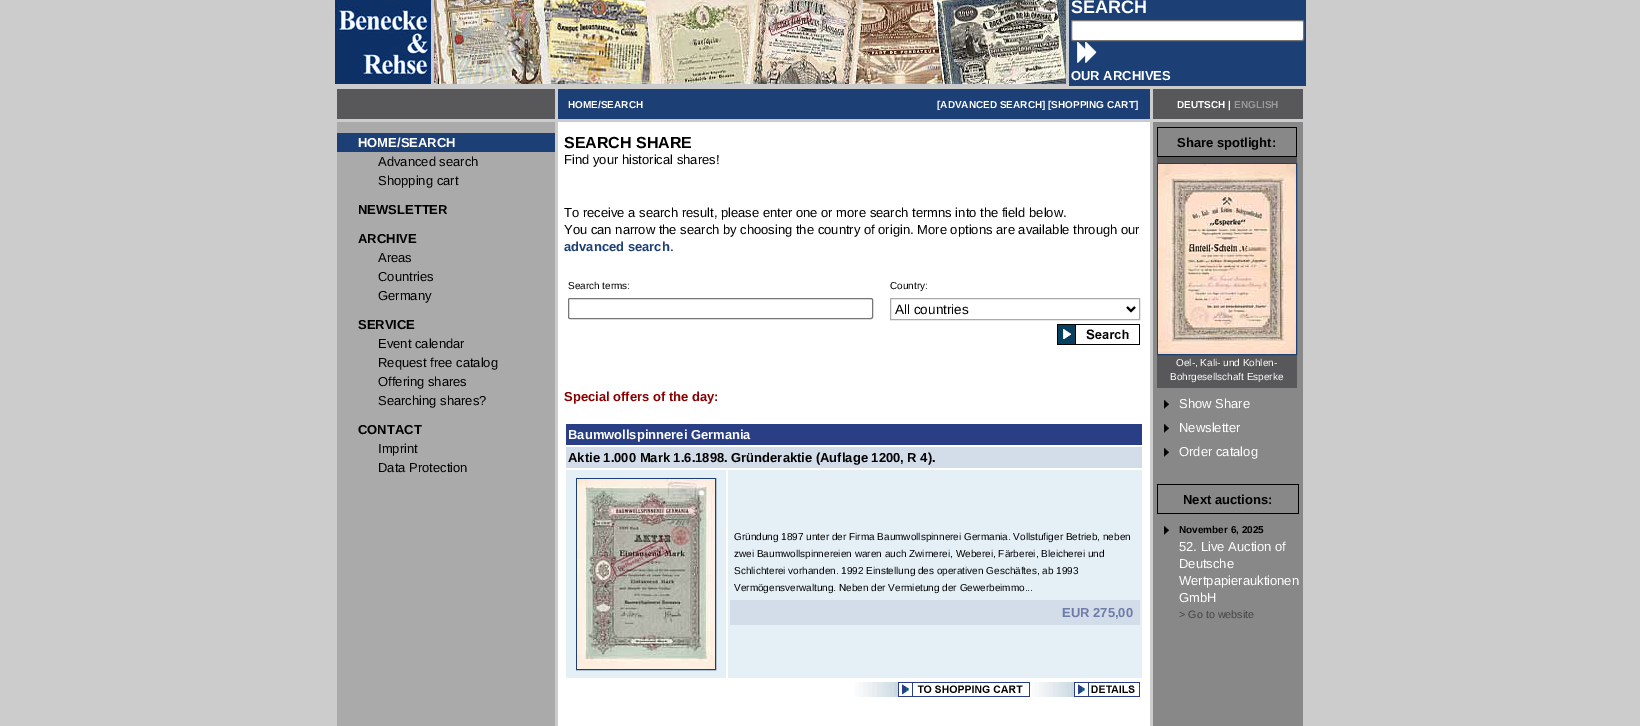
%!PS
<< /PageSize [1640 726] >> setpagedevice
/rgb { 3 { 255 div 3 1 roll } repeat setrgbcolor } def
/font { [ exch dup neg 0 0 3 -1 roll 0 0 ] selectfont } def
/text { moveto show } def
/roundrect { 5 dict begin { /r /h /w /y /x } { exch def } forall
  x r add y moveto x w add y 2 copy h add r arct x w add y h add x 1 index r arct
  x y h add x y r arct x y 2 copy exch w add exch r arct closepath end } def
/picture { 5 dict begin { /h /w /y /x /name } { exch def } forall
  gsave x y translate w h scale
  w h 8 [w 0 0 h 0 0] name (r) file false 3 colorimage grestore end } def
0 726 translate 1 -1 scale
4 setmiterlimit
204 204 204 rgb
0 0 1640 726 rectfill
(img_01.rgb) 335 0 734 84 picture
28 63 117 rgb
1069 0 237 86 rectfill
255 255 255 rgb
1071.5 20.5 232 20 1.5 roundrect gsave fill grestore
118 118 118 rgb
stroke
(img_02.rgb) 1077 42 20 21 picture
88 88 90 rgb
337 89 218 30 rectfill
28 63 117 rgb
558 89 592 30 rectfill
88 88 90 rgb
1153 89 150 30 rectfill
170 170 170 rgb
337 122 218 604 rectfill
28 63 117 rgb
337 133 218 19 rectfill
255 255 255 rgb
558 122 592 604 rectfill
118 118 118 rgb
568.5 298.5 304 20 1.5 roundrect stroke
170 170 170 rgb
890.5 298.5 249 21 rectstroke
0 0 0 rgb
2 setlinewidth
1127 307 moveto 4 4 rlineto 4 -4 rlineto stroke
(img_03.rgb) 1057 324 83 21 picture
41 62 132 rgb
566 424 576 21 rectfill
211 220 233 rgb
566 447 576 21 rectfill
228 239 246 rgb
566 470 160 208 rectfill
28 63 117 rgb
1 setlinewidth
576.5 478.5 139 191 rectstroke
(img_04.rgb) 577 479 138 190 picture
228 239 246 rgb
728 470 414 208 rectfill
211 220 233 rgb
730 600 410 25 rectfill
(img_05.rgb) 855 682 175 15 picture
(img_06.rgb) 1032 682 108 15 picture
136 136 136 rgb
1153 122 150 604 rectfill
0 0 0 rgb
1157 127 140 30 rectfill
136 136 136 rgb
1158 128 138 28 rectfill
88 88 90 rgb
1157 157 140 231 rectfill
28 63 117 rgb
1157.5 163.5 139 191 rectstroke
(img_07.rgb) 1158 164 138 190 picture
(img_08.rgb) 1164 400 5 9 picture
(img_08.rgb) 1164 424 5 9 picture
(img_08.rgb) 1164 448 5 9 picture
0 0 0 rgb
1157 484 142 30 rectfill
136 136 136 rgb
1158 485 140 28 rectfill
(img_08.rgb) 1164 526 5 9 picture
/LiberationSans-Bold 18 font
255 255 255 rgb
(SEARCH) 1071 13 text
/LiberationSans-Bold 13 font
(OUR ARCHIVES) 1071 80 text
/LiberationSans-Bold 10 font
(HOME/SEARCH) 568 108 text
([ADVANCED SEARCH] [SHOPPING CART]) 937 108 text
(DEUTSCH |) 1177 108 text
153 153 153 rgb
(ENGLISH) 1234 108 text
/LiberationSans-Bold 13 font
255 255 255 rgb
(HOME/SEARCH) 358 147 text
/LiberationSans-Regular 13 font
0 0 0 rgb
(Advanced search) 378 166 text
(Shopping cart) 378 185 text
/LiberationSans-Bold 13 font
(NEWSLETTER) 358 214 text
(ARCHIVE) 358 243 text
/LiberationSans-Regular 13 font
(Areas) 378 262 text
(Countries) 378 281 text
(Germany) 378 300 text
/LiberationSans-Bold 13 font
(SERVICE) 358 329 text
/LiberationSans-Regular 13 font
(Event calendar) 378 348 text
(Request free catalog) 378 367 text
(Offering shares) 378 386 text
(Searching shares?) 378 405 text
/LiberationSans-Bold 13 font
(CONTACT) 358 434 text
/LiberationSans-Regular 13 font
(Imprint) 378 453 text
(Data Protection) 378 472 text
/LiberationSans-Bold 16 font
(SEARCH SHARE) 564 148 text
/LiberationSans-Regular 13 font
(Find your historical shares!) 564 164 text
(To receive a search result, please enter one or more search termns into the field below.) 564 217 text
(You can narrow the search by choosing the country of origin. More options are available through our) 564 234 text
/LiberationSans-Bold 13 font
28 63 117 rgb
(advanced search) 564 251 text
/LiberationSans-Regular 13 font
0 0 0 rgb
(.) 670 251 text
/LiberationSans-Regular 10 font
(Search terms:) 568 289 text
(Country:) 890 289 text
/LiberationSans-Regular 13.5 font
(All countries) 895 314 text
/LiberationSans-Bold 13 font
136 0 0 rgb
(Special offers of the day:) 564 401 text
255 255 255 rgb
(Baumwollspinnerei Germania) 568 439 text
0 0 0 rgb
(Aktie 1.000 Mark 1.6.1898. Gründeraktie \(Auflage 1200, R 4\).) 568 462 text
/LiberationSans-Regular 10 font
(Gründung 1897 unter der Firma Baumwollspinnerei Germania. Vollstufiger Betrieb, neben) 734 540 text
(zwei Baumwollspinnereien waren auch Zwirnerei, Weberei, Färberei, Bleicherei und) 734 557 text
(Schlichterei vorhanden. 1992 Einstellung des operativen Geschäftes, ab 1993) 734 574 text
(Vermögensverwaltung. Neben der Vermietung der Gewerbeimmo...) 734 591 text
/LiberationSans-Bold 13 font
111 124 167 rgb
(EUR 275,00) 1062 617 text
0 0 0 rgb
(Share spotlight:) 1177 147 text
/LiberationSans-Regular 10 font
255 255 255 rgb
(Oel-, Kali- und Kohlen-) 1176 366 text
(Bohrgesellschaft Esperke) 1170 380 text
/LiberationSans-Regular 13 font
(Show Share) 1179 408 text
(Newsletter) 1179 432 text
(Order catalog) 1179 456 text
/LiberationSans-Bold 13 font
0 0 0 rgb
(Next auctions:) 1183 504 text
/LiberationSans-Bold 10 font
(November 6, 2025) 1179 533 text
/LiberationSans-Regular 13 font
255 255 255 rgb
(52. Live Auction of) 1179 551 text
(Deutsche) 1179 568 text
(Wertpapierauktionen) 1179 585 text
(GmbH) 1179 602 text
/LiberationSans-Regular 10.75 font
68 68 68 rgb
(> Go to website) 1179 618 text
showpage
